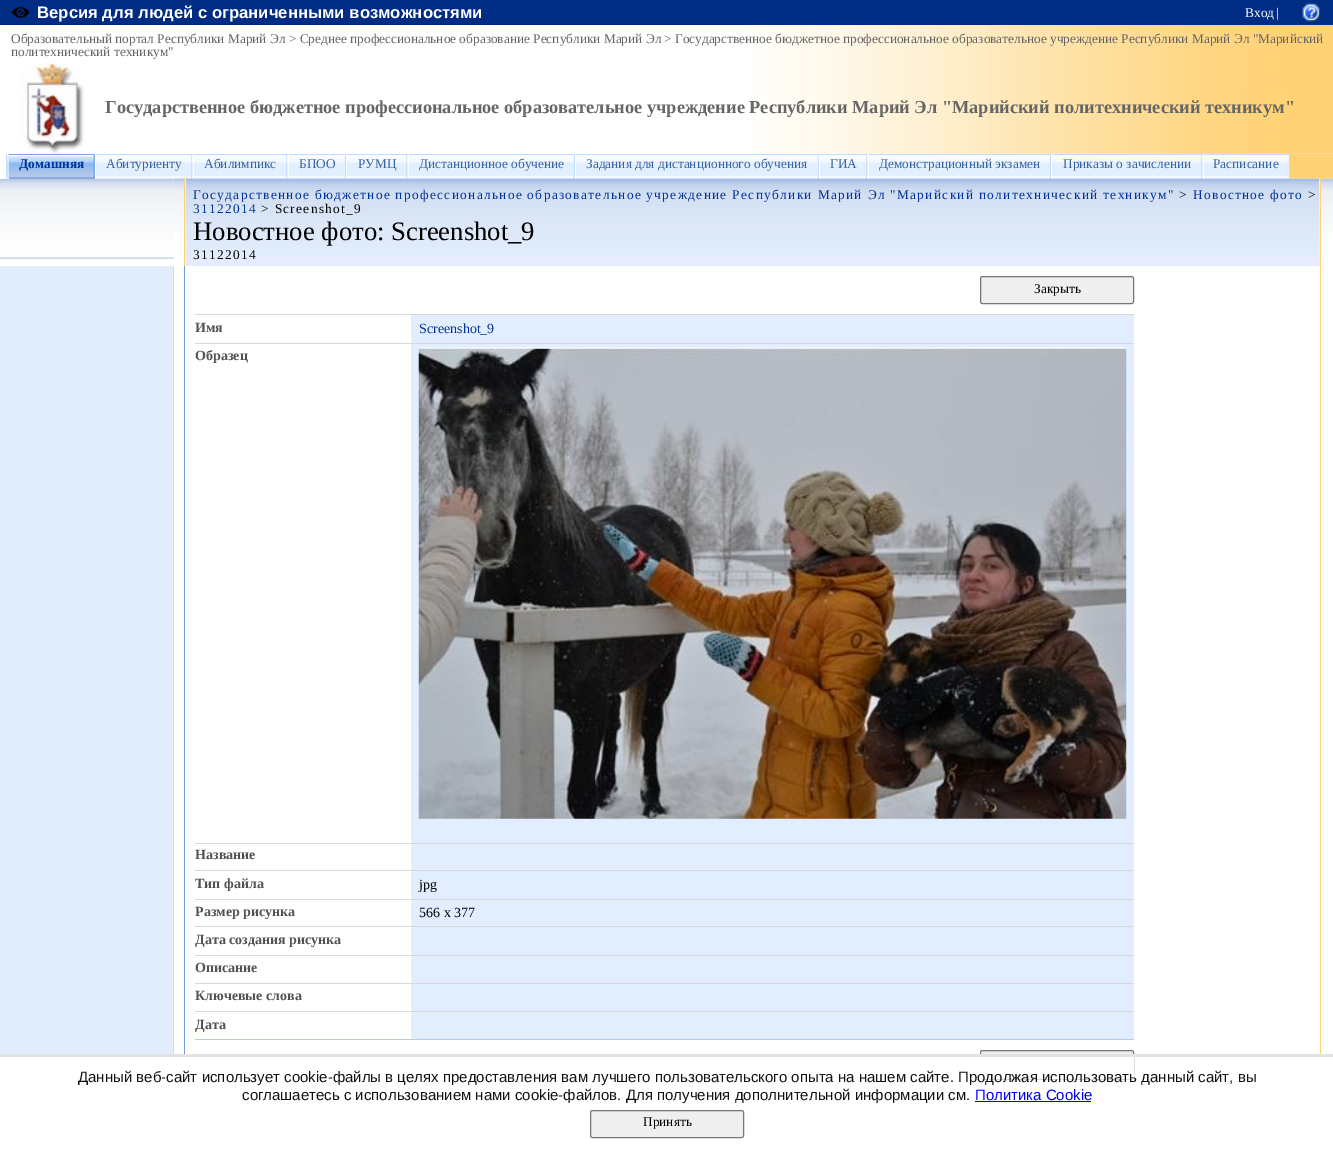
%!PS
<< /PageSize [1333 1149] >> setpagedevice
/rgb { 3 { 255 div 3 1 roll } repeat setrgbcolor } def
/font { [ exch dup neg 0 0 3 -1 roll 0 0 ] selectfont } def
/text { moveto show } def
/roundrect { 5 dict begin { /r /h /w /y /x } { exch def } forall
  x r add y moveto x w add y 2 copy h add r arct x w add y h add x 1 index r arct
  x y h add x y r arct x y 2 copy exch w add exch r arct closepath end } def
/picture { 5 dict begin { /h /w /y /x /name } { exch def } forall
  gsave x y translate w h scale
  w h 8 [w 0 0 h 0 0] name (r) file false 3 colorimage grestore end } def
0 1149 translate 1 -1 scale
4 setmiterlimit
255 255 255 rgb
0 0 1333 1149 rectfill
0 44 132 rgb
0 0 1333 25 rectfill
(img_01.rgb) 11 7 19 12 picture
(img_02.rgb) 1302 3 19 19 picture
(img_03.rgb) 749 25 584 129 picture
(img_04.rgb) 19 63 65 91 picture
(img_05.rgb) 748 153 585 26 picture
194 220 255 rgb
6 154 1 25 rectfill
(img_06.rgb) 7 155 1 23 picture
121 167 227 rgb
8 154 87 1 rectfill
94 154 1 25 rectfill
227 239 255 rgb
8 154 1 25 rectfill
101 147 207 rgb
9 155 85 24 rectfill
(img_07.rgb) 8 155 86 23 picture
226 239 255 rgb
192 155 1 24 rectfill
(img_08.rgb) 192 155 1 23 picture
194 220 255 rgb
95 154 1195 1 rectfill
191 154 1 25 rectfill
255 255 255 rgb
95 154 1 1 rectfill
226 239 255 rgb
96 155 95 24 rectfill
(img_09.rgb) 96 155 96 23 picture
287 155 1 24 rectfill
(img_10.rgb) 192 155 96 23 picture
194 220 255 rgb
286 154 1 25 rectfill
255 255 255 rgb
193 154 1 25 rectfill
226 239 255 rgb
194 177 92 2 rectfill
(img_11.rgb) 193 155 94 23 picture
(img_12.rgb) 287 155 1 23 picture
194 220 255 rgb
345 154 1 25 rectfill
255 255 255 rgb
288 154 1 1 rectfill
226 239 255 rgb
289 177 56 2 rectfill
(img_13.rgb) 288 155 57 23 picture
347 155 61 24 rectfill
(img_14.rgb) 347 155 61 23 picture
194 220 255 rgb
406 154 1 25 rectfill
255 255 255 rgb
346 154 1 1 rectfill
226 239 255 rgb
348 177 58 1 rectfill
(img_15.rgb) 348 155 59 23 picture
(img_12.rgb) 407 155 1 23 picture
194 220 255 rgb
574 154 1 25 rectfill
255 255 255 rgb
408 154 1 1 rectfill
226 239 255 rgb
409 155 165 24 rectfill
(img_16.rgb) 408 155 166 23 picture
194 220 255 rgb
818 154 1 25 rectfill
255 255 255 rgb
575 154 1 1 rectfill
226 239 255 rgb
576 155 242 24 rectfill
(img_17.rgb) 576 155 242 23 picture
867 155 1 24 rectfill
(img_18.rgb) 818 155 50 23 picture
194 220 255 rgb
866 154 1 25 rectfill
255 255 255 rgb
819 154 1 25 rectfill
226 239 255 rgb
820 177 46 2 rectfill
(img_19.rgb) 820 155 47 23 picture
(img_12.rgb) 867 155 1 23 picture
194 220 255 rgb
1050 154 1 25 rectfill
255 255 255 rgb
868 154 1 25 rectfill
226 239 255 rgb
869 177 181 2 rectfill
(img_20.rgb) 868 155 182 23 picture
1052 155 151 24 rectfill
(img_21.rgb) 1052 155 151 23 picture
194 220 255 rgb
1201 154 1 25 rectfill
255 255 255 rgb
1051 154 1 25 rectfill
226 239 255 rgb
1053 177 148 1 rectfill
(img_22.rgb) 1053 155 149 23 picture
(img_12.rgb) 1202 155 1 23 picture
194 220 255 rgb
1289 154 1 25 rectfill
255 255 255 rgb
1203 154 1 25 rectfill
226 239 255 rgb
1204 155 85 24 rectfill
(img_23.rgb) 1203 155 86 23 picture
(img_24.rgb) 0 178 174 81 picture
(img_25.rgb) 173 178 12 54 picture
255 209 117 rgb
184 179 1 87 rectfill
231 235 255 rgb
186 256 1133 10 rectfill
(img_26.rgb) 185 178 1135 78 picture
231 239 255 rgb
1319 179 1 87 rectfill
185 179 1 87 rectfill
(img_27.rgb) 1320 178 13 54 picture
255 210 117 rgb
1320 179 1 87 rectfill
225 236 252 rgb
0 266 173 788 rectfill
212 220 230 rgb
173 266 1 788 rectfill
111 157 217 rgb
184 266 1 788 rectfill
239 239 239 rgb
980.5 276.5 153 27 2 roundrect gsave fill grestore
118 118 118 rgb
stroke
216 216 216 rgb
195 314 939 1 rectfill
226 238 255 rgb
411 315 723 28 rectfill
216 216 216 rgb
195 343 939 1 rectfill
226 238 255 rgb
411 344 723 499 rectfill
(img_28.rgb) 418 347 709 472 picture
216 216 216 rgb
195 843 939 1 rectfill
226 238 255 rgb
411 844 723 26 rectfill
216 216 216 rgb
195 870 939 1 rectfill
226 238 255 rgb
411 871 723 28 rectfill
216 216 216 rgb
195 899 939 1 rectfill
226 238 255 rgb
411 900 723 26 rectfill
216 216 216 rgb
195 926 939 1 rectfill
226 238 255 rgb
411 927 723 28 rectfill
216 216 216 rgb
195 955 939 1 rectfill
226 238 255 rgb
411 956 723 27 rectfill
216 216 216 rgb
195 983 939 1 rectfill
226 238 255 rgb
411 984 723 27 rectfill
216 216 216 rgb
195 1011 939 1 rectfill
226 238 255 rgb
411 1012 723 27 rectfill
175 202 255 rgb
195 1039 939 1 rectfill
239 239 239 rgb
980.5 1050.5 153 28 2 roundrect gsave fill grestore
118 118 118 rgb
stroke
255 209 117 rgb
1320 266 1 788 rectfill
255 255 255 rgb
980 1057 154 22 rectfill
227 227 227 rgb
0 1054 1333 3 rectfill
0 0 238 rgb
975 1101 116 1 rectfill
239 239 239 rgb
590.5 1110.5 153 27 2 roundrect gsave fill grestore
118 118 118 rgb
stroke
/LiberationSans-Bold 16.7 font
255 255 255 rgb
(Версия для людей с ограниченными возможностями) 37 18 text
/LiberationSerif-Regular 13.33 font
(Вход) 1245 17 text
(|) 1276 17 text
102 102 102 rgb
(Образовательный портал Республики Марий Эл > Среднее профессиональное образование Республики Марий Эл) 11 43 text
(> Государственное бюджетное профессиональное образовательное учреждение Республики Марий Эл "Марийский) 664 43 text
(политехнический техникум") 11 56 text
/LiberationSerif-Bold 18.33 font
(Государственное бюджетное профессиональное образовательное учреждение Республики Марий Эл "Марийский политехнический техникум") 105 113 text
/LiberationSerif-Bold 13.33 font
0 51 153 rgb
(Домашняя) 19 168 text
/LiberationSerif-Regular 13.33 font
55 100 160 rgb
(Абитуриенту) 106 168 text
(Абилимпикс) 204 168 text
(БПОО) 299 168 text
(РУМЦ) 358 168 text
(Дистанционное обучение) 419 168 text
(Задания для дистанционного обучения) 586 168 text
(ГИА) 830 168 text
(Демонстрационный экзамен) 879 168 text
(Приказы о зачислении) 1063 168 text
(Расписание) 1213 168 text
0 51 153 rgb
193 199 moveto 1.33 0 (Государственное бюджетное профессиональное образовательное учреждение Республики Марий Эл "Марийский политехнический техникум") ashow
0 0 0 rgb
1179 199 moveto 1.33 0 (>) ashow
0 51 153 rgb
1193 199 moveto 1.33 0 (Новостное фото) ashow
0 0 0 rgb
1308 199 moveto 1.33 0 (>) ashow
0 51 153 rgb
193 213 moveto 1.33 0 (31122014) ashow
0 0 0 rgb
261 213 moveto 1.33 0 (> Screenshot_9) ashow
/LiberationSerif-Regular 26.7 font
(Новостное фото: Screenshot_9) 193 240 text
/LiberationSerif-Regular 13.33 font
193 259 moveto 1.33 0 (31122014) ashow
(Закрыть) 1034 293 text
/LiberationSerif-Bold 14 font
82 82 82 rgb
(Имя) 195 332 text
/LiberationSerif-Regular 14 font
0 51 153 rgb
(Screenshot_9) 419 333 text
/LiberationSerif-Bold 14 font
82 82 82 rgb
(Образец) 195 360 text
(Название) 195 859 text
(Тип файла) 195 888 text
/LiberationSerif-Regular 14 font
0 0 0 rgb
(jpg) 419 889 text
/LiberationSerif-Bold 14 font
82 82 82 rgb
(Размер рисунка) 195 916 text
/LiberationSerif-Regular 14 font
0 0 0 rgb
(566 x 377) 419 917 text
/LiberationSerif-Bold 14 font
82 82 82 rgb
(Дата создания рисунка) 195 944 text
(Описание) 195 972 text
(Ключевые слова) 195 1000 text
(Дата) 195 1029 text
/LiberationSans-Regular 15 font
17 17 17 rgb
(Данный веб-сайт использует cookie-файлы в целях предоставления вам лучшего пользовательского опыта на нашем сайте. Продолжая использовать данный сайт, вы) 78 1082 text
(соглашаетесь с использованием нами cookie-файлов. Для получения дополнительной информации см.) 242 1100 text
0 0 238 rgb
(Политика Cookie) 975 1100 text
/LiberationSerif-Regular 13.33 font
0 0 0 rgb
(Принять) 643 1126 text
showpage
